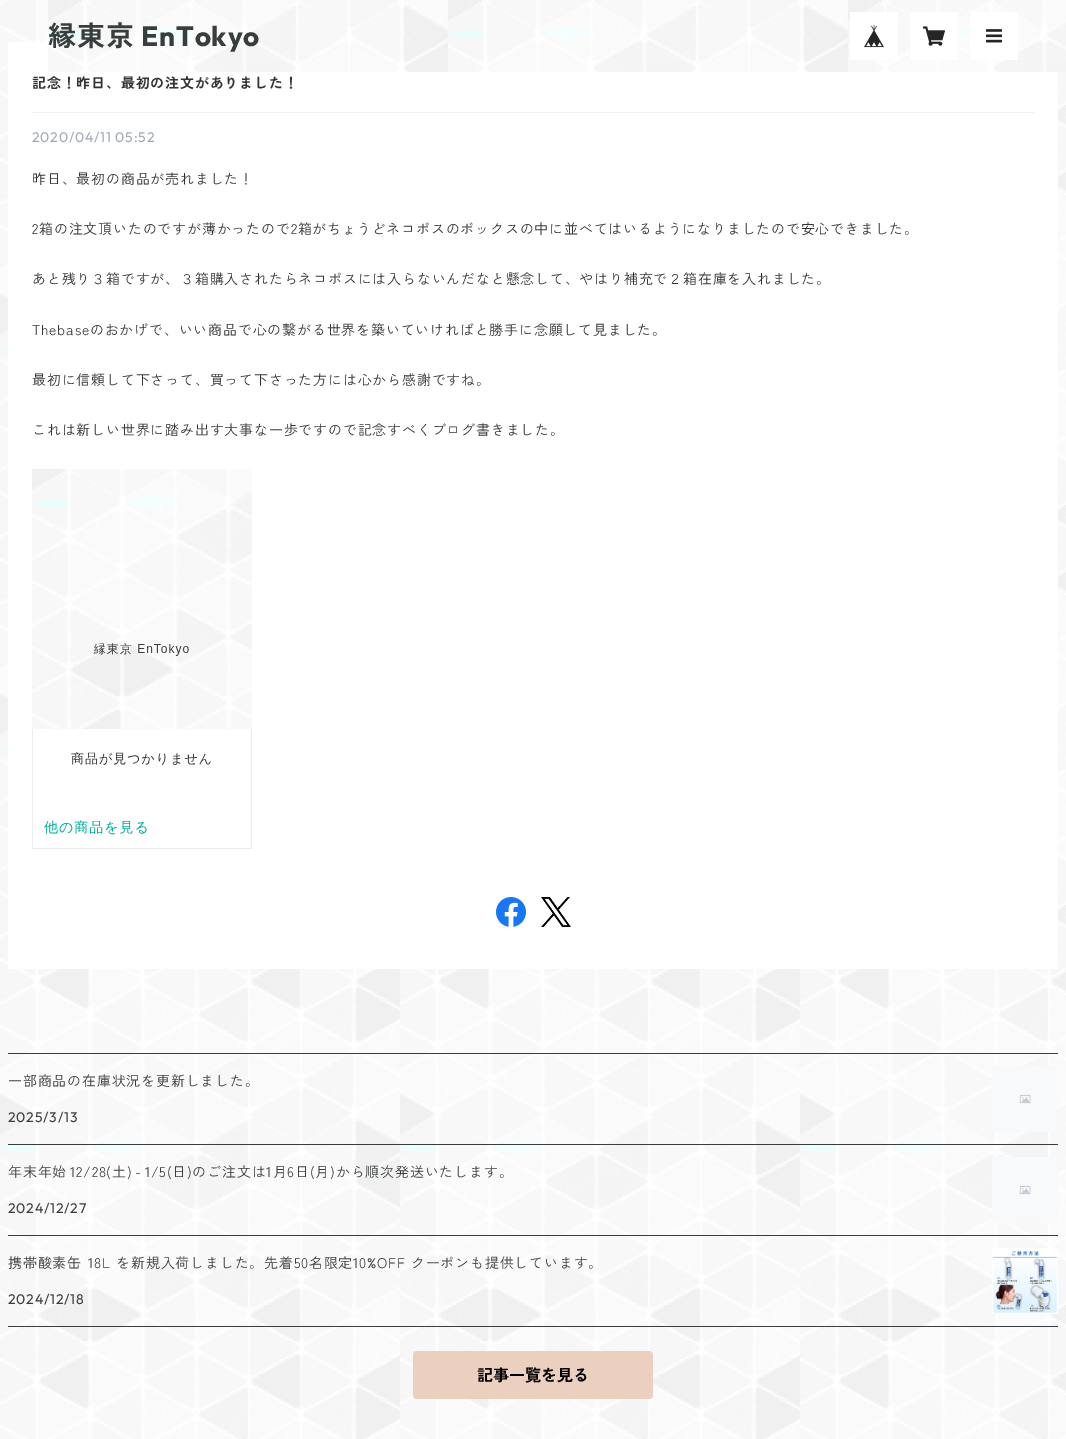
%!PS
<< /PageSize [1066 1439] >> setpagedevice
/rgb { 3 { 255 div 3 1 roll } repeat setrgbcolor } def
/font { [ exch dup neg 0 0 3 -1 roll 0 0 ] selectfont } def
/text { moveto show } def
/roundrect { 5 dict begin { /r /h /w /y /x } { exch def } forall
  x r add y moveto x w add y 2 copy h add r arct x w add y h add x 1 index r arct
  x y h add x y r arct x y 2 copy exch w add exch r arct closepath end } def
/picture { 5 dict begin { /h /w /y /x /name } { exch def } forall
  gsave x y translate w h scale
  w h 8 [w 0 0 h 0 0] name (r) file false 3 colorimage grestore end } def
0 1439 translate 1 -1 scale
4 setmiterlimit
255 255 255 rgb
0 0 1066 1439 rectfill
(img_01.rgb) 0 0 1066 1439 picture
8 42 1050 927 2 roundrect fill
(img_02.rgb) 48 0 1018 72 picture
850 12 48 48 rectfill
(img_03.rgb) 864 25 20 23 picture
910 12 48 48 rectfill
(img_04.rgb) 923 26 22 20 picture
970 12 48 48 rectfill
(img_05.rgb) 986 29 16 14 picture
240 241 244 rgb
32 112 1002 1 rectfill
(img_06.rgb) 32 469 220 380 picture
(img_07.rgb) 496 897 30 30 picture
(img_08.rgb) 541 897 30 30 picture
56 61 61 rgb
8 1326 1050 1 rectfill
8 1053 1050 1 rectfill
(img_09.rgb) 992 1066 65 66 picture
8 1144 1050 1 rectfill
(img_10.rgb) 992 1157 66 66 picture
8 1235 1050 1 rectfill
(img_11.rgb) 992 1248 66 66 picture
235 208 192 rgb
413 1351 240 48 4 roundrect fill
/ZenKakuGothicNew-Bold 28 font
56 61 61 rgb
48 46 moveto 0.8 0 (縁東京) ashow
/Outfit-Bold 28 font
141 46 moveto 0.8 0 (EnTokyo) ashow
/ZenKakuGothicNew-Bold 14 font
51 51 51 rgb
32 88 moveto 0.8 0 (記念！昨日、最初の注文がありました！) ashow
/Outfit-Regular 14 font
160 169 181 rgb
32 142 moveto 0.8 0 (2020/04/11 05:52) ashow
/ZenKakuGothicNew-Regular 14 font
51 51 51 rgb
32 184 moveto 0.8 0 (昨日、最初の商品が売れました！) ashow
32 234 moveto 0.8 0 (2箱の注文頂いたのですが薄かったので2箱がちょうどネコポスのボックスの中に並べてはいるようになりましたので安心できました。) ashow
32 284 moveto 0.8 0 (あと残り３箱ですが、３箱購入されたらネコポスには入らないんだなと懸念して、やはり補充で２箱在庫を入れました。) ashow
32 335 moveto 0.8 0 (Thebaseのおかげで、いい商品で心の繋がる世界を築いていければと勝手に念願して見ました。) ashow
32 385 moveto 0.8 0 (最初に信頼して下さって、買って下さった方には心から感謝ですね。) ashow
32 435 moveto 0.8 0 (これは新しい世界に踏み出す大事な一歩ですので記念すべくブログ書きました。) ashow
56 61 61 rgb
8 1086 moveto 0.8 0 (一部商品の在庫状況を更新しました。) ashow
/Outfit-Regular 14 font
8 1122 moveto 0.8 0 (2025/3/13) ashow
/ZenKakuGothicNew-Regular 14 font
8 1177 moveto -2 0 32 0.8 0 (年末年始 12/28\(土\) - 1/5\(日\)のご注文は1月6日\(月\)から順次発送いたします。) awidthshow
/Outfit-Regular 14 font
8 1213 moveto 0.8 0 (2024/12/27) ashow
/ZenKakuGothicNew-Regular 14 font
8 1268 moveto 1 0 32 0.8 0 (携帯酸素缶 18L を新規入荷しました。先着50名限定10) awidthshow
/Outfit-Regular 14 font
367 1268 moveto 0.8 0 (%) ashow
/ZenKakuGothicNew-Regular 14 font
377 1268 moveto 1 0 32 0.8 0 (OFF クーポンも提供しています。) awidthshow
/Outfit-Regular 14 font
8 1304 moveto 0.8 0 (2024/12/18) ashow
/ZenKakuGothicNew-Bold 16 font
0 0 0 rgb
(記事一覧を見る) 477 1381 text
showpage
